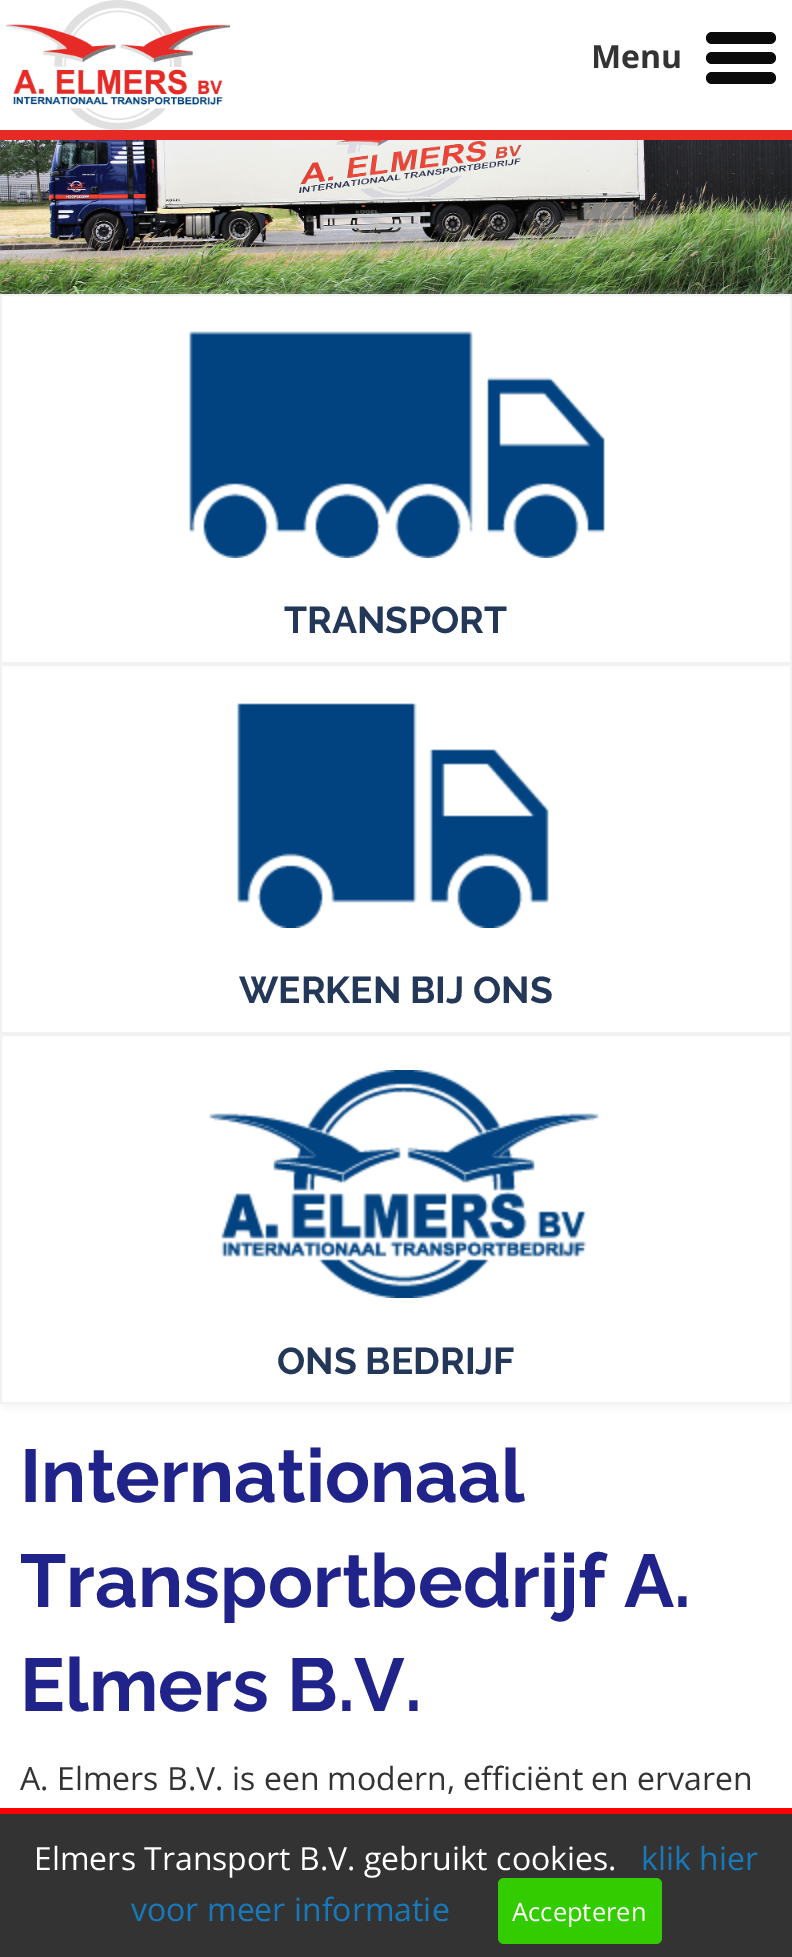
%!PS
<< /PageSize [792 1957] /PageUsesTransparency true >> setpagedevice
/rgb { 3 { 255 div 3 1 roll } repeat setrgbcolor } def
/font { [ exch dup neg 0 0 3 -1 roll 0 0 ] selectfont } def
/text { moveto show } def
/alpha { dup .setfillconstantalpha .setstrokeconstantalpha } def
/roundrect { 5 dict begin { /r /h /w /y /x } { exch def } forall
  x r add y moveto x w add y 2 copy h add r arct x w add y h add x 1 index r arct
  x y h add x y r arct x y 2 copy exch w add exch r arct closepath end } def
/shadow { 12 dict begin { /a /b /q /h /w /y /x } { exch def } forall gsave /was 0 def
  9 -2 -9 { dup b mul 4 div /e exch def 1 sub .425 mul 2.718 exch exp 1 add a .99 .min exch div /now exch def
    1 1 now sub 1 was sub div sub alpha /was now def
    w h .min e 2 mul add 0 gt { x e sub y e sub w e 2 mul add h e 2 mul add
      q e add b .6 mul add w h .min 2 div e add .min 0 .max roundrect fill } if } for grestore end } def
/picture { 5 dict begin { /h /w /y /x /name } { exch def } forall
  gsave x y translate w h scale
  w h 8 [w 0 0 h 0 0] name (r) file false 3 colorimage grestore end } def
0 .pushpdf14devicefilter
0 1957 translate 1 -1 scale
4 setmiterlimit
255 255 255 rgb
0 0 792 1957 rectfill
230 43 39 rgb
0 130 792 10 rectfill
(img_01.rgb) 5 0 225 130 picture
10 10 10 rgb
706 72 70 12 6 roundrect fill
706 52 70 12 6 roundrect fill
706 32 70 12 6 roundrect fill
(img_02.rgb) 0 140 792 154 picture
gsave
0 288 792 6 rectclip
245 245 245 rgb
4 298 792 370 0 5 1 shadow
grestore
242 242 242 rgb
2 setlinewidth
1 295 790 368 rectstroke
(img_03.rgb) 189 331 416 227 picture
245 245 245 rgb
4 668 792 370 0 5 1 shadow
255 255 255 rgb
1 665 moveto 790 0 rlineto 0 368 rlineto -790 0 rlineto closepath gsave fill grestore
242 242 242 rgb
stroke
(img_04.rgb) 237 703 312 225 picture
245 245 245 rgb
4 1038 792 370 0 5 1 shadow
255 255 255 rgb
1 1035 moveto 790 0 rlineto 0 368 rlineto -790 0 rlineto closepath gsave fill grestore
242 242 242 rgb
stroke
(img_05.rgb) 209 1070 390 228 picture
51 51 51 rgb
0 1814 792 143 rectfill
255 0 0 rgb
0 1808 792 6 rectfill
51 204 0 rgb
498 1878 164 66 6 roundrect fill
/OpenSans-Bold 32 font
51 51 51 rgb
(Menu) 591 68 text
/Raleway-Bold 37.25 font
35 56 89 rgb
(TRANSPORT) 284 633 text
(WERKEN BIJ ONS) 239 1003 text
(ONS BEDRIJF) 277 1374 text
/Raleway-Bold 74.75 font
31 35 138 rgb
(Internationaal) 20 1502 text
(Transportbedrijf A.) 20 1607 text
(Elmers B.V.) 20 1711 text
/OpenSans-Regular 32 font
51 51 51 rgb
(A. Elmers B.V. is een modern, efficiënt en ervaren) 20 1790 text
255 255 255 rgb
(Elmers Transport B.V. gebruikt cookies.) 34 1870 text
23 121 186 rgb
(klik hier) 641 1870 text
(voor meer informatie) 131 1921 text
/OpenSans-Regular 25.5 font
255 255 255 rgb
(Accepteren) 512 1921 text
.poppdf14devicefilter showpage
